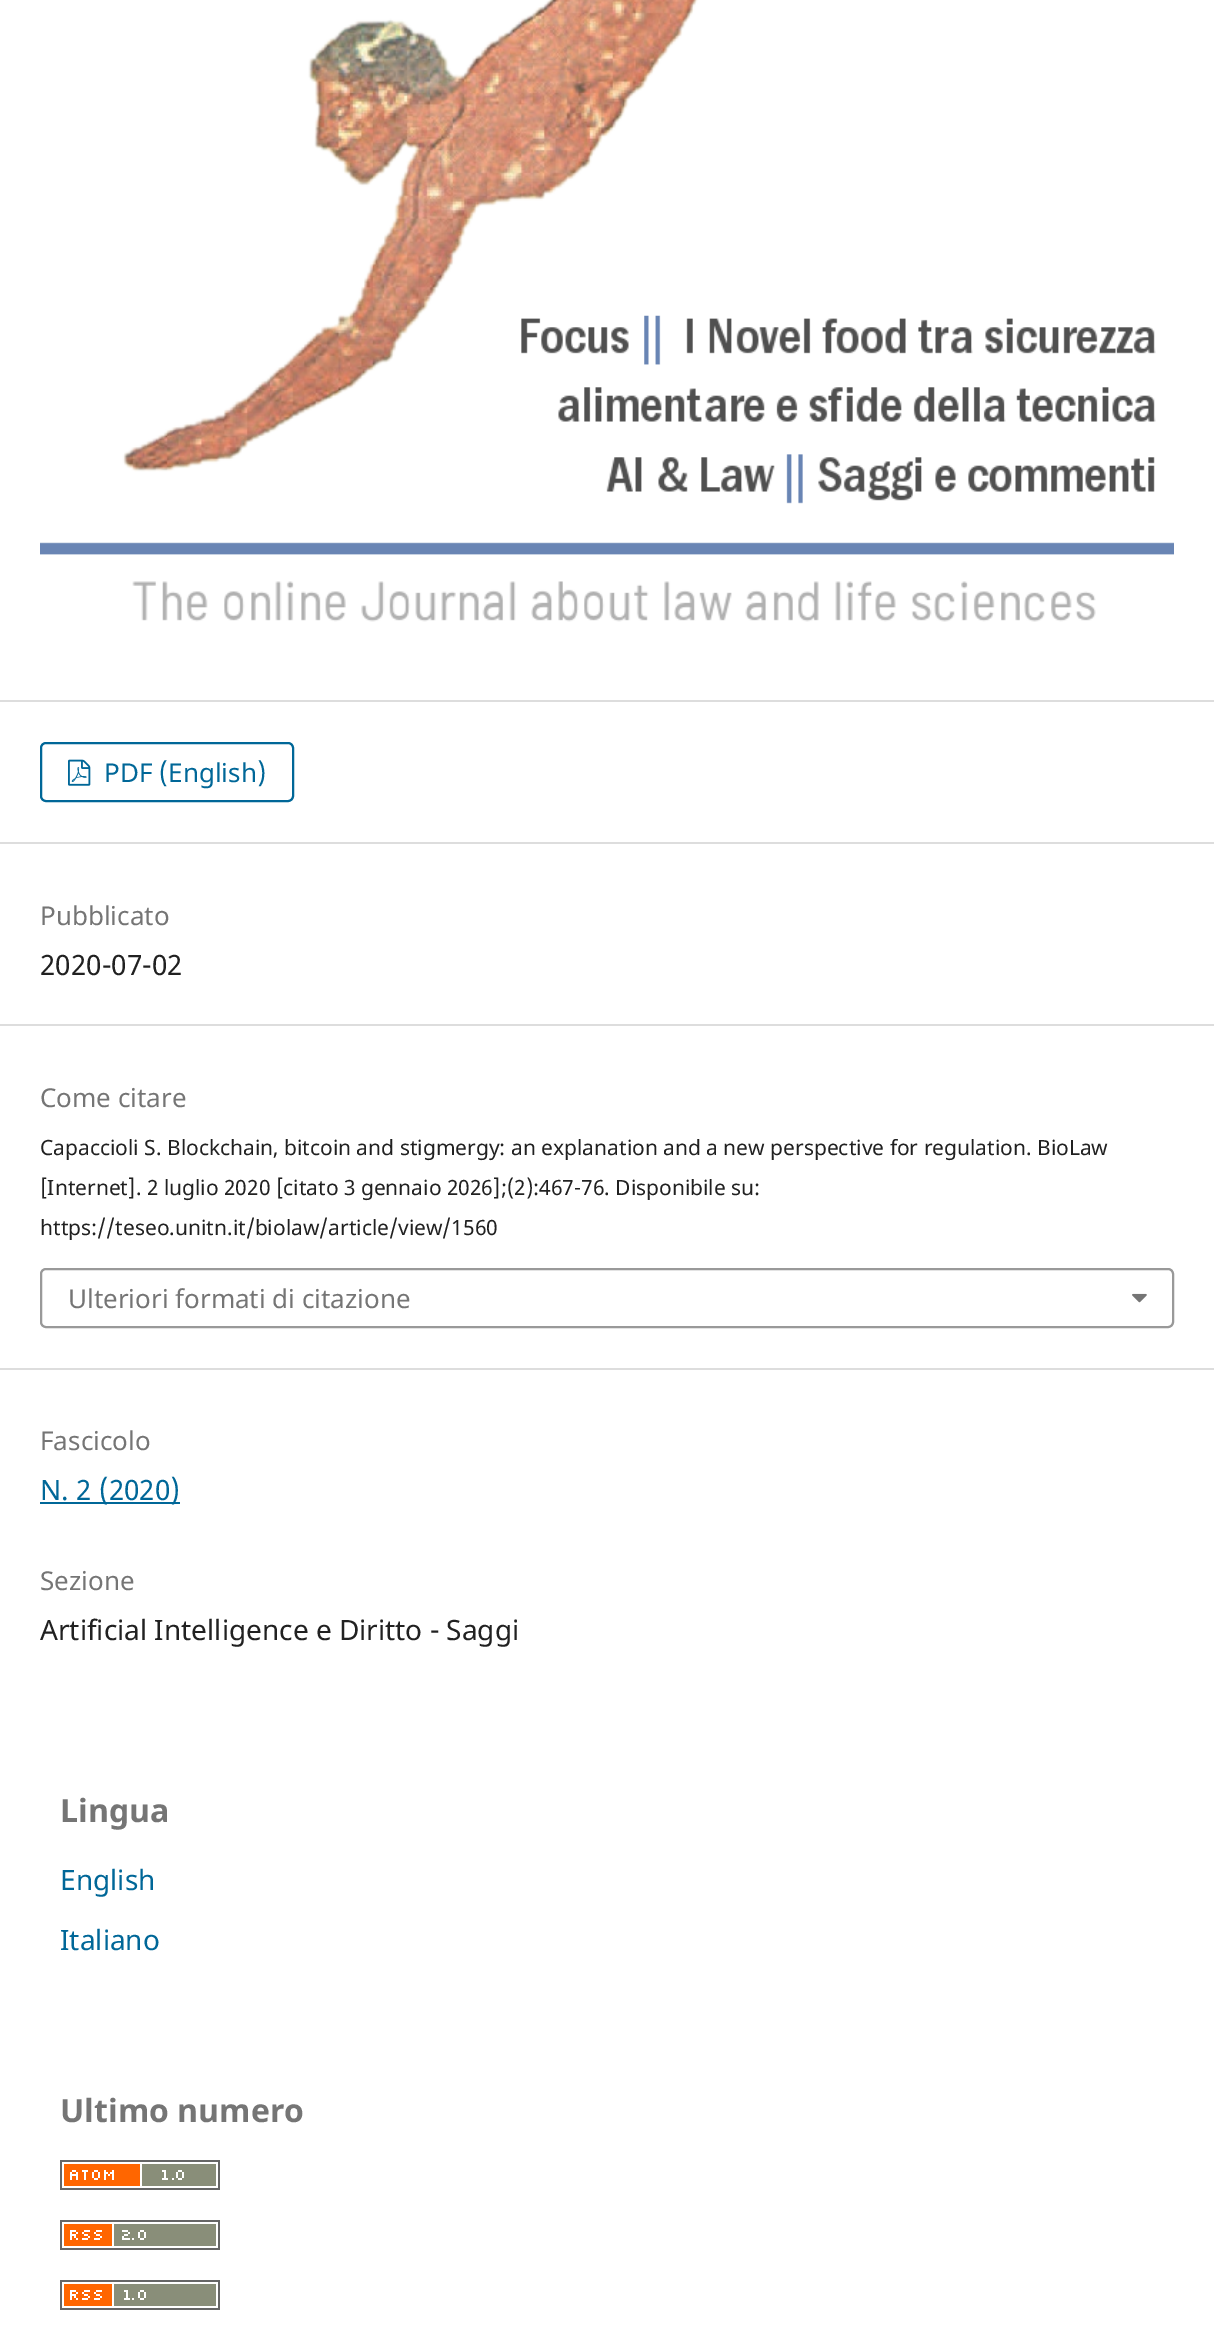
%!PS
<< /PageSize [1214 2326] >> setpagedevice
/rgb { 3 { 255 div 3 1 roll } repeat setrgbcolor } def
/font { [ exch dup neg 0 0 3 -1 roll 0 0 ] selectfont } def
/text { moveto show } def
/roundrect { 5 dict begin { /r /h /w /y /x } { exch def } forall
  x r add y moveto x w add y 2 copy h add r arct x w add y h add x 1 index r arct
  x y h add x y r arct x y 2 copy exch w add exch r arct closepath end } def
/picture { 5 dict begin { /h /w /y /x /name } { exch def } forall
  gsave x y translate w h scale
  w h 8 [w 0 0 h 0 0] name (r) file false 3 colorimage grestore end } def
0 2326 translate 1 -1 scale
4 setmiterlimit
255 255 255 rgb
0 0 1214 2326 rectfill
221 221 221 rgb
0 700 1214 2 rectfill
(img_01.rgb) 40 0 1134 622 picture
0 842 1214 2 rectfill
0 103 152 rgb
2 setlinewidth
41 743 252 58 5 roundrect stroke
(img_02.rgb) 68 759 23 27 picture
221 221 221 rgb
0 1024 1214 2 rectfill
0 1368 1214 2 rectfill
153 153 153 rgb
41 1269 1132 58 5 roundrect stroke
(img_03.rgb) 1132 1293 15 10 picture
0 103 152 rgb
40 1502 140 2 rectfill
(img_04.rgb) 60 2160 160 30 picture
(img_05.rgb) 60 2220 160 30 picture
(img_06.rgb) 60 2280 160 30 picture
/NotoSans-Regular 26 font
(PDF \(English\)) 104 782 text
117 117 117 rgb
(Pubblicato) 40 925 text
/NotoSans-Regular 28 font
33 33 33 rgb
(2020-07-02) 40 975 text
/NotoSans-Regular 26 font
117 117 117 rgb
(Come citare) 40 1107 text
/NotoSans-Regular 21 font
33 33 33 rgb
(Capaccioli S. Blockchain, bitcoin and stigmergy: an explanation and a new perspective for regulation. BioLaw) 40 1155 text
([Internet]. 2 luglio 2020 [citato 3 gennaio 2026];\(2\):467-76. Disponibile su:) 40 1195 text
(https://teseo.unitn.it/biolaw/article/view/1560) 40 1235 text
/NotoSans-Regular 26 font
117 117 117 rgb
(Ulteriori formati di citazione) 68 1308 text
(Fascicolo) 40 1450 text
/NotoSans-Regular 28 font
0 103 152 rgb
(N. 2 \(2020\)) 40 1500 text
/NotoSans-Regular 26 font
117 117 117 rgb
(Sezione) 40 1590 text
/NotoSans-Regular 28 font
33 33 33 rgb
(Artificial Intelligence e Diritto - Saggi) 40 1640 text
/NotoSans-Bold 32 font
117 117 117 rgb
(Lingua) 60 1822 text
/NotoSans-Regular 28 font
0 103 152 rgb
(English) 60 1890 text
(Italiano) 60 1950 text
/NotoSans-Bold 32 font
117 117 117 rgb
(Ultimo numero) 60 2122 text
showpage
